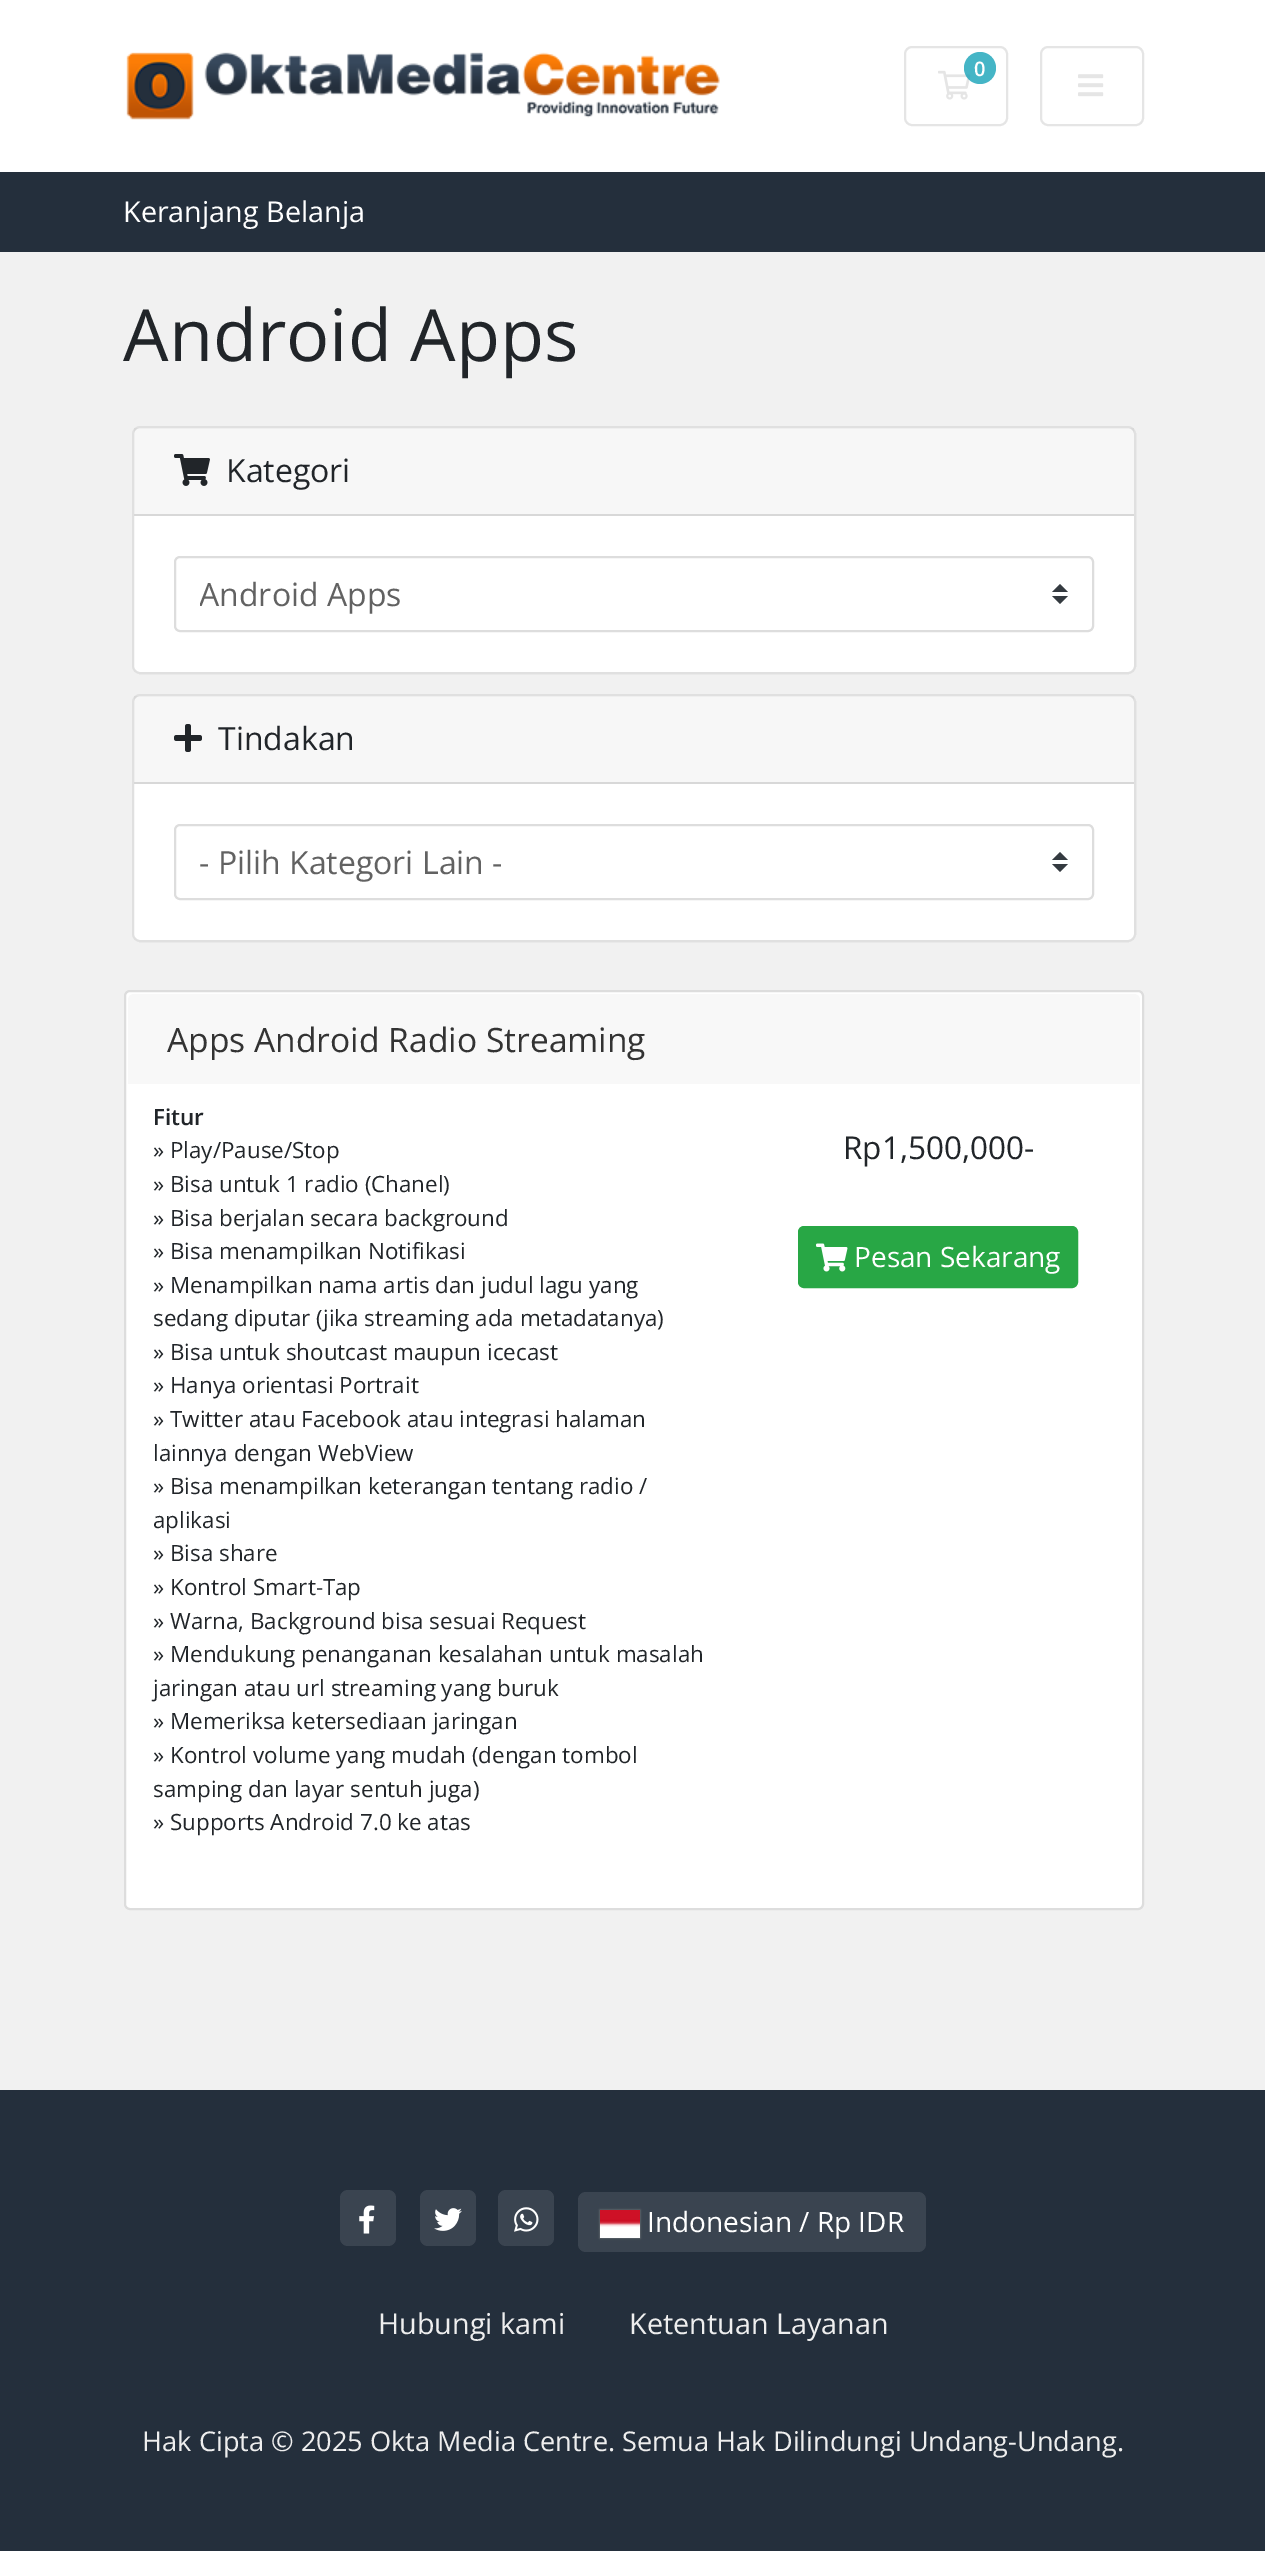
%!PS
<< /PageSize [1265 2551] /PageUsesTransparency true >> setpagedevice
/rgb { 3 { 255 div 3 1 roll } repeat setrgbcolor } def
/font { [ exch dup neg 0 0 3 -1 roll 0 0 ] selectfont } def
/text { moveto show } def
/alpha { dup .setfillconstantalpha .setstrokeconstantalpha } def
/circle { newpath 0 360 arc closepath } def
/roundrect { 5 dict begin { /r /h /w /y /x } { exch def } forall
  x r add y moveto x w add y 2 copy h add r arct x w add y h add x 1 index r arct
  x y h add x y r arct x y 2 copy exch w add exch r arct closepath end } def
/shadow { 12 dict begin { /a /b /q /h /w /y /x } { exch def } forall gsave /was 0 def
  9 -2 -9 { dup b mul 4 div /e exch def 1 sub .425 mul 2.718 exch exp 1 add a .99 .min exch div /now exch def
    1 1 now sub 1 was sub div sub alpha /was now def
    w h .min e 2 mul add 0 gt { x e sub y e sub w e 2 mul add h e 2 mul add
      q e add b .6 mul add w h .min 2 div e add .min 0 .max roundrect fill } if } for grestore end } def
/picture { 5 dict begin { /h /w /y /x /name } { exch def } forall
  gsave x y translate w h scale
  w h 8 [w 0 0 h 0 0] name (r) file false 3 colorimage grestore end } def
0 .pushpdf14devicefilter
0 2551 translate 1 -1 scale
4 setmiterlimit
241 241 241 rgb
0 0 1265 2551 rectfill
255 255 255 rgb
0 0 1265 172 rectfill
(img_01.rgb) 126 52 594 68 picture
229 229 229 rgb
2 setlinewidth
905 47 102 78 7 roundrect stroke
(img_02.rgb) 938 70 33 30 picture
0.8 alpha
23 162 184 rgb
980 68 16 circle fill
1 alpha
229 229 229 rgb
1041 47 102 78 7 roundrect stroke
(img_03.rgb) 1078 74 26 23 picture
36 47 60 rgb
0 172 1265 80 rectfill
255 255 255 rgb
132 426 1004 248 8 roundrect fill
0.12 alpha
0 0 0 rgb
133 427 1002 246 7 roundrect stroke
0.03 alpha
134 428 1000 86 rectfill
1 alpha
216 216 216 rgb
134 514 1000 2 rectfill
(img_04.rgb) 174 454 36 32 picture
52 58 64 rgb
1060 584 moveto -8 8 rlineto 16 0 rlineto closepath 1060 604 moveto -8 -8 rlineto 16 0 rlineto closepath fill
221 221 221 rgb
175 557 918 74 5 roundrect stroke
255 255 255 rgb
132 694 1004 248 8 roundrect fill
0.12 alpha
0 0 0 rgb
133 695 1002 246 7 roundrect stroke
0.03 alpha
134 696 1000 86 rectfill
1 alpha
216 216 216 rgb
134 782 1000 2 rectfill
(img_05.rgb) 174 724 28 28 picture
52 58 64 rgb
1060 852 moveto -8 8 rlineto 16 0 rlineto closepath 1060 872 moveto -8 -8 rlineto 16 0 rlineto closepath fill
221 221 221 rgb
175 825 918 74 5 roundrect stroke
255 255 255 rgb
125 991 1018 918 5 roundrect gsave fill grestore
221 221 221 rgb
stroke
248 248 248 rgb
134 994 moveto 1000 0 rlineto 3.5 0 6 2.5 6 6 rcurveto 0 84 rlineto -1012 0 rlineto 0 -84 rlineto 0 -3.5 2.5 -6 6 -6 rcurveto closepath fill
40 167 69 rgb
799 1227 278 60 5 roundrect gsave fill grestore
stroke
(img_06.rgb) 816 1243 32 29 picture
36 47 60 rgb
0 2090 1265 461 rectfill
58 68 80 rgb
340 2190 56 56 8 roundrect fill
(img_07.rgb) 359 2205 16 29 picture
420 2190 56 56 8 roundrect fill
(img_08.rgb) 434 2208 28 23 picture
498 2190 56 56 8 roundrect fill
(img_09.rgb) 514 2207 25 25 picture
578 2192 348 60 8 roundrect fill
136 136 136 rgb
600 2210 40 28 0 1 1 shadow
(img_10.rgb) 600 2210 40 28 picture
/OpenSans-SemiBold 20 font
255 255 255 rgb
(0) 974 76 text
/OpenSans-Regular 28.75 font
(Keranjang Belanja) 123 222 text
/OpenSans-Regular 72 font
33 37 41 rgb
(Android Apps) 123 361 text
/OpenSans-Regular 32 font
(Kategori) 226 482 text
gsave
200 570 836 48 rectclip
98 98 98 rgb
(Android Apps) 199 606 text
grestore
(Tindakan) 218 750 text
98 98 98 rgb
(- Pilih Kategori Lain -) 199 874 text
/OpenSans-Regular 33.6 font
51 51 51 rgb
(Apps Android Radio Streaming) 167 1052 text
/OpenSans-SemiBold 22.4 font
33 37 41 rgb
(Fitur) 153 1125 text
/OpenSans-Regular 22.4 font
(» Play/Pause/Stop) 153 1158 text
(» Bisa untuk 1 radio \(Chanel\)) 153 1192 text
(» Bisa berjalan secara background) 153 1226 text
(» Bisa menampilkan Notifikasi) 153 1259 text
(» Menampilkan nama artis dan judul lagu yang) 153 1293 text
(sedang diputar \(jika streaming ada metadatanya\)) 153 1326 text
(» Bisa untuk shoutcast maupun icecast) 153 1360 text
(» Hanya orientasi Portrait) 153 1393 text
(» Twitter atau Facebook atau integrasi halaman) 153 1427 text
(lainnya dengan WebView) 153 1461 text
(» Bisa menampilkan keterangan tentang radio /) 153 1494 text
(aplikasi) 153 1528 text
(» Bisa share) 153 1561 text
(» Kontrol Smart-Tap) 153 1595 text
(» Warna, Background bisa sesuai Request) 153 1629 text
(» Mendukung penanganan kesalahan untuk masalah) 153 1662 text
(jaringan atau url streaming yang buruk) 153 1696 text
(» Memeriksa ketersediaan jaringan) 153 1729 text
(» Kontrol volume yang mudah \(dengan tombol) 153 1763 text
(samping dan layar sentuh juga\)) 153 1797 text
(» Supports Android 7.0 ke atas) 153 1830 text
/OpenSans-Regular 31.5 font
(Rp1,500,000-) 843 1159 text
/OpenSans-Regular 28 font
255 255 255 rgb
(Pesan Sekarang) 854 1267 text
(Indonesian / Rp IDR) 647 2232 text
/OpenSans-Regular 28.75 font
238 238 238 rgb
(Hubungi kami) 378 2334 text
(Ketentuan Layanan) 629 2334 text
/OpenSans-Regular 27.2 font
(Hak Cipta © 2025 Okta Media Centre. Semua Hak Dilindungi Undang-Undang.) 142 2451 text
.poppdf14devicefilter showpage
